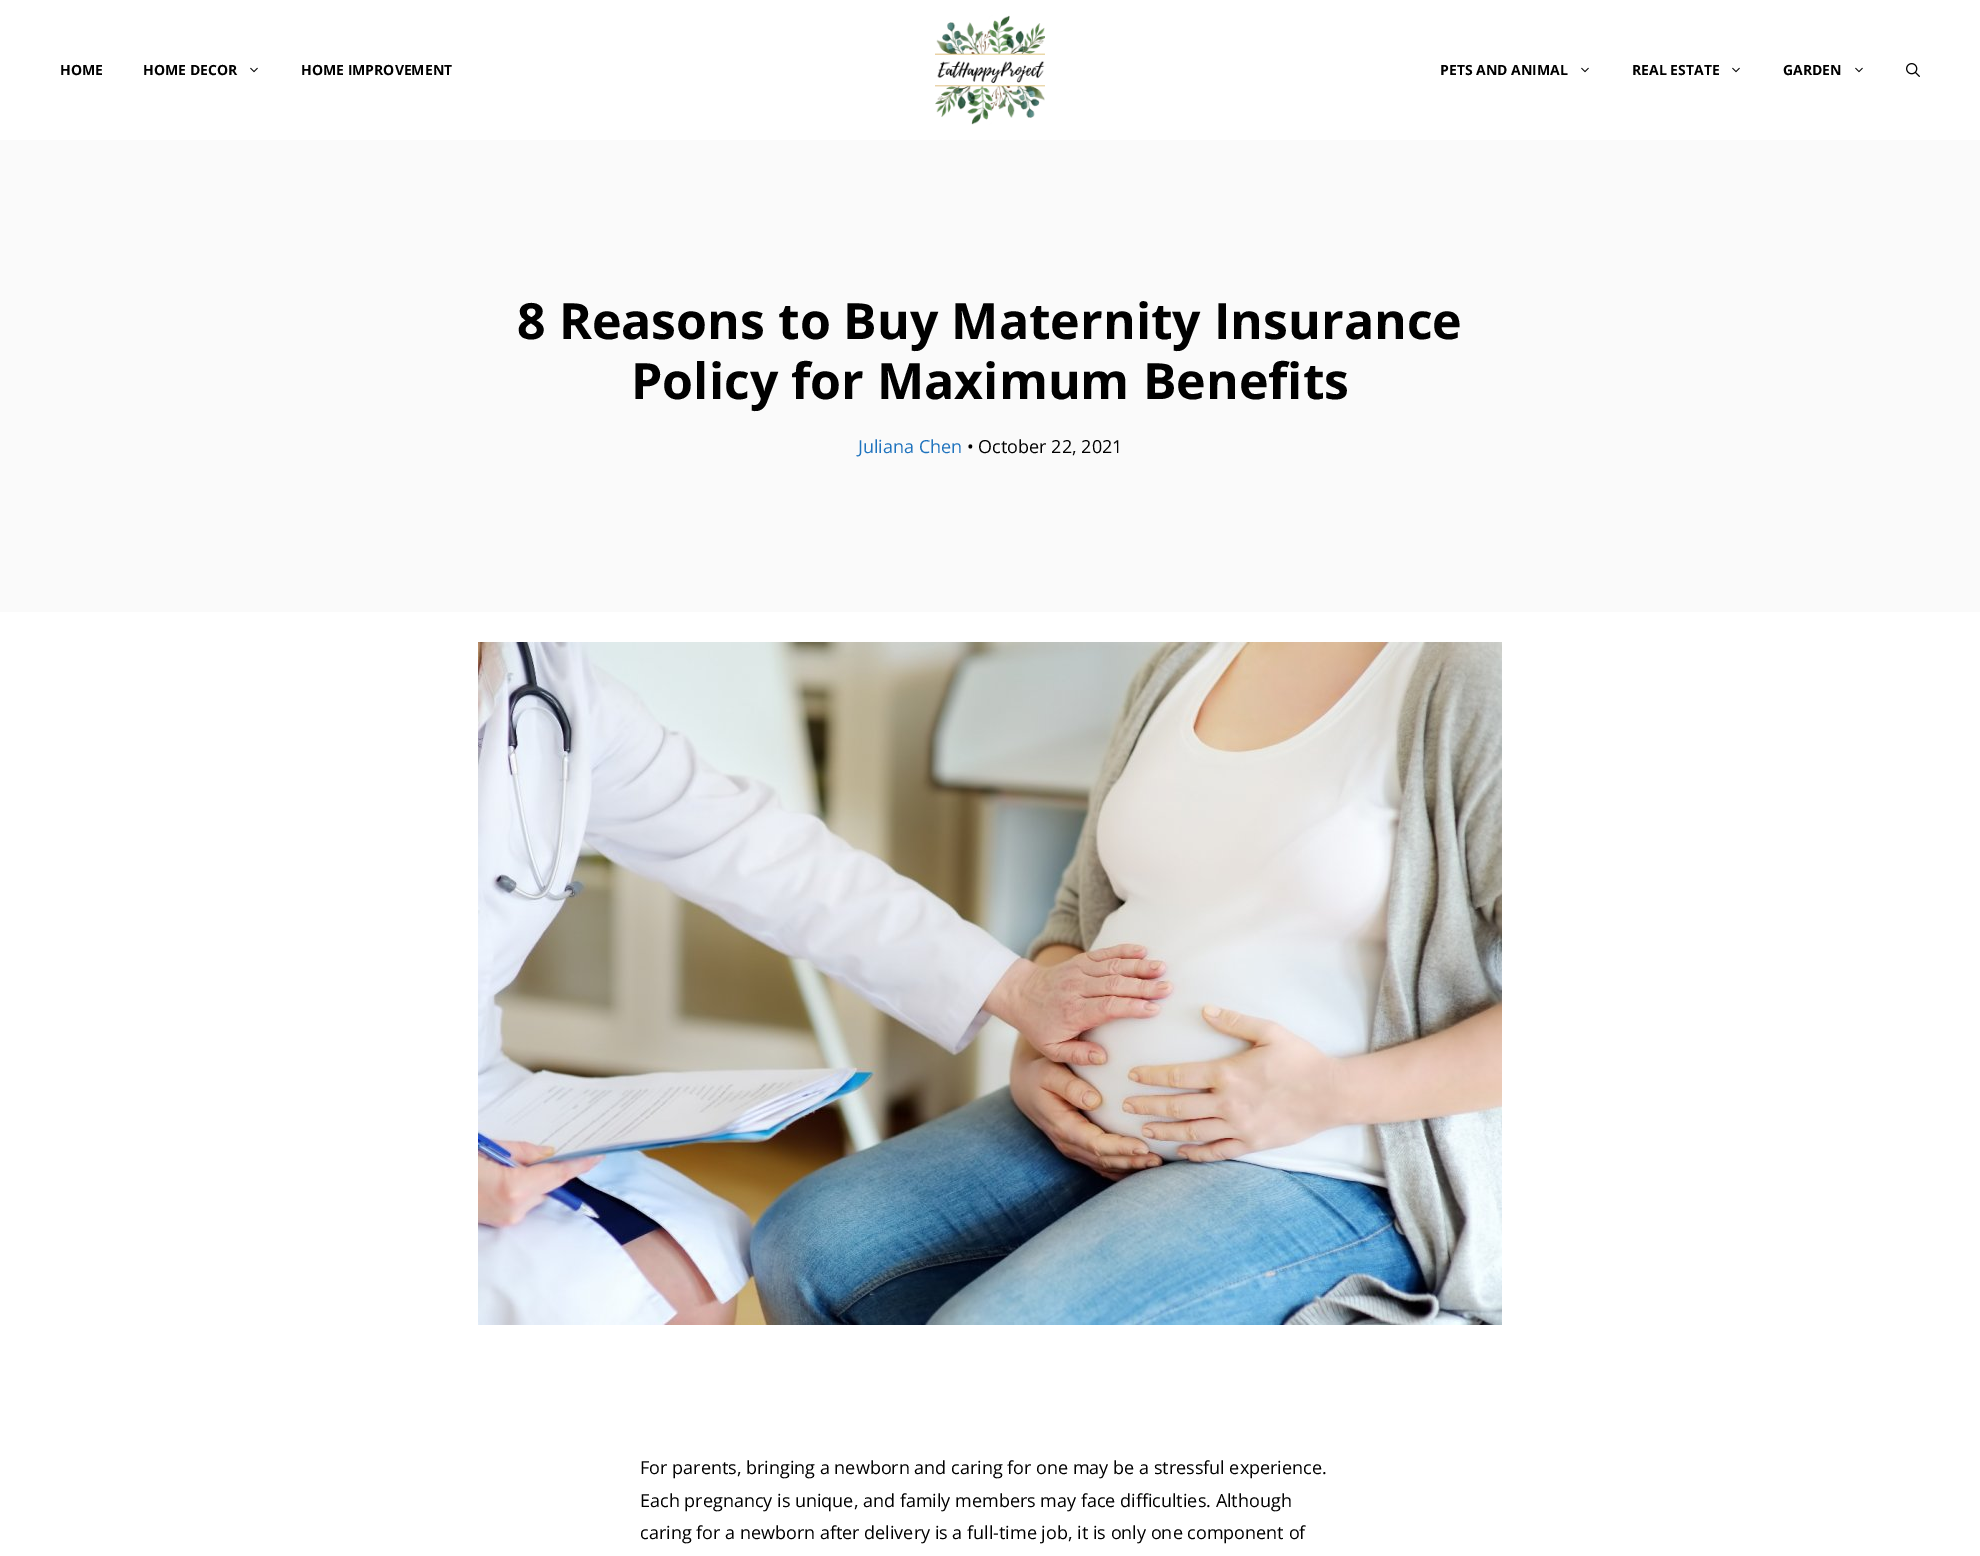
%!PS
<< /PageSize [1980 1556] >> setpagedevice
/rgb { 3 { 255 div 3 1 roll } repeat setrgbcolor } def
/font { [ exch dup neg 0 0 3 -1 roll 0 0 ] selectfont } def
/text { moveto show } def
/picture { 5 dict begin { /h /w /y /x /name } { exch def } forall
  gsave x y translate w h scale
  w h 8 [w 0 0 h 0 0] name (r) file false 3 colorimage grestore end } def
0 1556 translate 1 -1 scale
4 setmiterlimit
255 255 255 rgb
0 0 1980 1556 rectfill
(img_01.rgb) 935 15 110 110 picture
(img_02.rgb) 250 67 8 6 picture
(img_02.rgb) 1581 67 8 6 picture
(img_02.rgb) 1732 67 8 6 picture
(img_02.rgb) 1855 67 8 6 picture
(img_03.rgb) 1906 63 14 14 picture
250 250 250 rgb
0 140 1980 472 rectfill
(img_04.rgb) 478 642 1024 683 picture
/OpenSans-Bold 14 font
0 0 0 rgb
(HOME) 60 75 text
(HOME DECOR) 143 75 text
(HOME IMPROVEMENT) 301 75 text
(PETS AND ANIMAL) 1440 75 text
(REAL ESTATE) 1632 75 text
(GARDEN) 1783 75 text
/OpenSans-Bold 50 font
(8 Reasons to Buy Maternity Insurance) 517 339 text
(Policy for Maximum Benefits) 631 399 text
/OpenSans-Regular 18 font
30 115 190 rgb
(Juliana Chen) 858 453 text
0 0 0 rgb
(• October 22, 2021) 967 453 text
(For parents, bringing a newborn and caring for one may be a stressful experience.) 640 1474 text
(Each pregnancy is unique, and family members may face difficulties. Although) 640 1507 text
(caring for a newborn after delivery is a full-time job, it is only one component of) 640 1539 text
showpage
